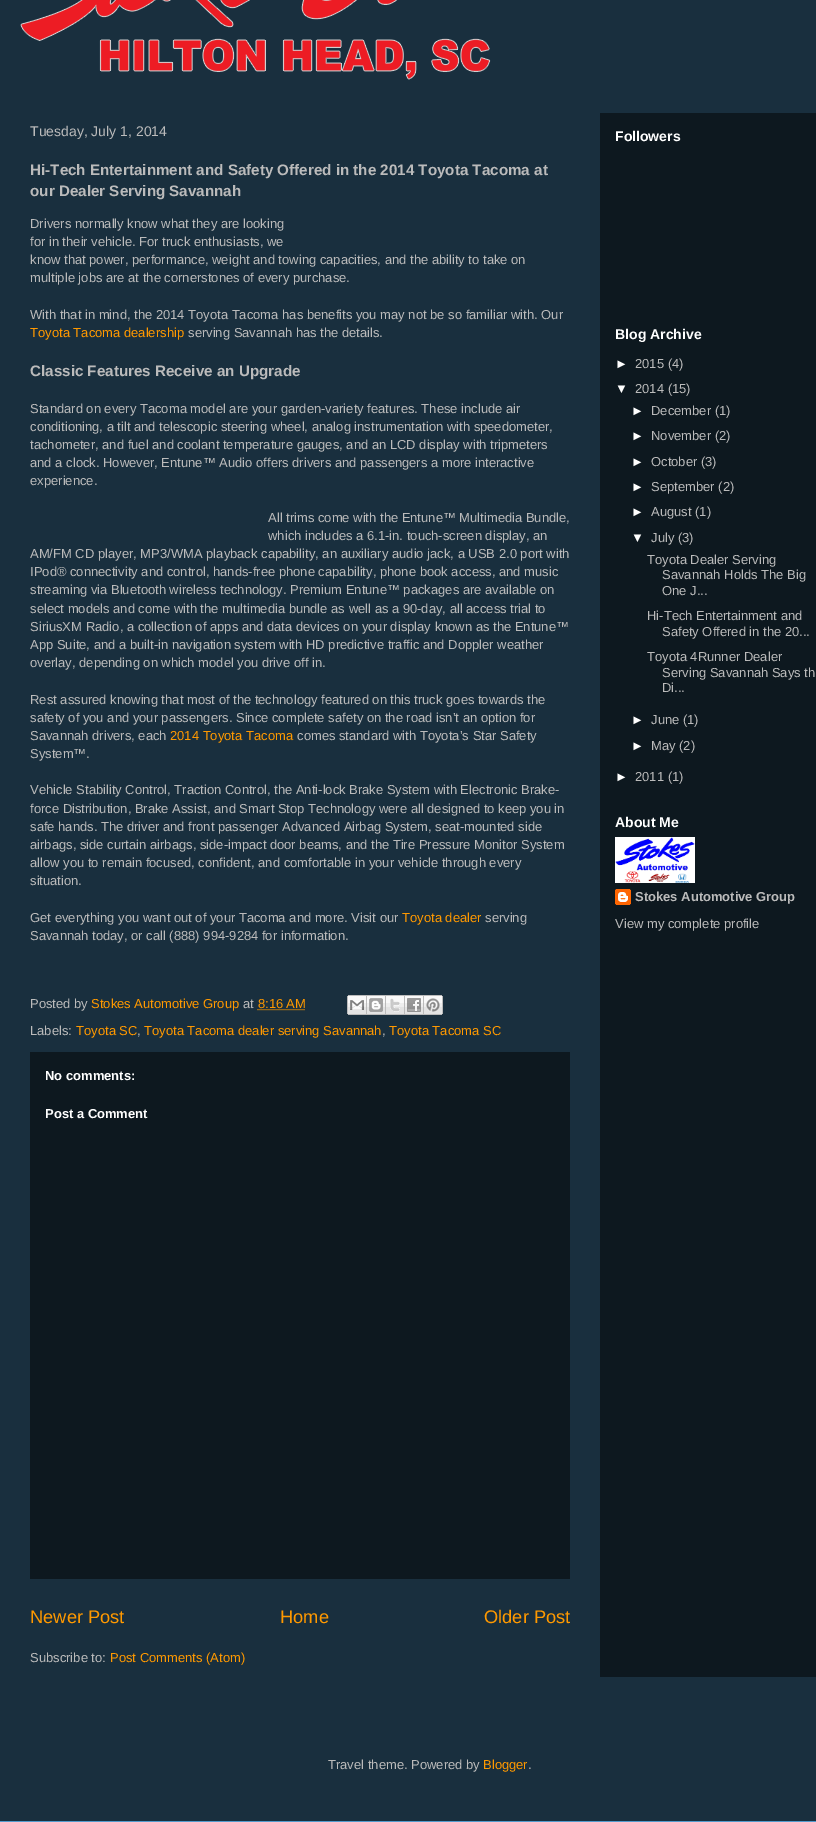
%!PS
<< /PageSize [816 1822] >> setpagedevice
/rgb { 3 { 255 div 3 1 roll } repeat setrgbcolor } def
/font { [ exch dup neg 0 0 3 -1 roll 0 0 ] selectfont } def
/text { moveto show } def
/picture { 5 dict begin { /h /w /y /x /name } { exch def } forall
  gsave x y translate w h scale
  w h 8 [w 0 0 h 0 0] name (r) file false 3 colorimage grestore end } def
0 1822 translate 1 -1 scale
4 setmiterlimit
83 155 205 rgb
0 0 816 1822 rectfill
25 47 62 rgb
0 0 816 1821 rectfill
(img_01.rgb) 20 0 471 80 picture
13 24 31 rgb
600 113 216 1564 rectfill
255 153 0 rgb
[1 1] 0 setdash
257.5 1009.5 moveto 47.5 0 rlineto stroke
(img_02.rgb) 347 995 20 20 picture
(img_03.rgb) 367 995 19 20 picture
(img_04.rgb) 386 995 19 20 picture
(img_05.rgb) 405 995 19 20 picture
(img_06.rgb) 424 995 19 20 picture
13 24 31 rgb
30 1052 540 527 rectfill
(img_07.rgb) 615 837 80 46 picture
(img_08.rgb) 615 889 16 16 picture
/LiberationSans-Regular 14 font
187 187 187 rgb
(Tuesday, July 1, 2014) 30 136 text
/LiberationSans-Bold 15.2 font
(Hi-Tech Entertainment and Safety Offered in the 2014 Toyota Tacoma at) 30 175 text
(our Dealer Serving Savannah) 30 196 text
/LiberationSans-Regular 13 font
(Drivers normally know what they are looking) 30 228 text
(for in their vehicle. For truck enthusiasts, we) 30 246 text
(know that power, performance, weight and towing capacities, and the ability to take on) 30 264 text
(multiple jobs are at the cornerstones of every purchase.) 30 282 text
(With that in mind, the 2014 Toyota Tacoma has benefits you may not be so familiar with. Our) 30 319 text
255 153 0 rgb
(Toyota Tacoma dealership) 30 337 text
187 187 187 rgb
(serving Savannah has the details.) 188 337 text
/LiberationSans-Bold 15.2 font
(Classic Features Receive an Upgrade) 30 376 text
/LiberationSans-Regular 13 font
(Standard on every Tacoma model are your garden-variety features. These include air) 30 413 text
(conditioning, a tilt and telescopic steering wheel, analog instrumentation with speedometer,) 30 431 text
(tachometer, and fuel and coolant temperature gauges, and an LCD display with tripmeters) 30 449 text
(and a clock. However, Entune™ Audio offers drivers and passengers a more interactive) 30 467 text
(experience.) 30 485 text
(All trims come with the Entune™ Multimedia Bundle,) 268 522 text
(which includes a 6.1-in. touch-screen display, an) 268 540 text
(AM/FM CD player, MP3/WMA playback capability, an auxiliary audio jack, a USB 2.0 port with) 30 558 text
(IPod® connectivity and control, hands-free phone capability, phone book access, and music) 30 576 text
(streaming via Bluetooth wireless technology. Premium Entune™ packages are available on) 30 594 text
(select models and come with the multimedia bundle as well as a 90-day, all access trial to) 30 613 text
(SiriusXM Radio, a collection of apps and data devices on your display known as the Entune™) 30 631 text
(App Suite, and a built-in navigation system with HD predictive traffic and Doppler weather) 30 649 text
(overlay, depending on which model you drive off in.) 30 667 text
(Rest assured knowing that most of the technology featured on this truck goes towards the) 30 704 text
(safety of you and your passengers. Since complete safety on the road isn’t an option for) 30 722 text
(Savannah drivers, each) 30 740 text
255 153 0 rgb
(2014 Toyota Tacoma) 170 740 text
187 187 187 rgb
(comes standard with Toyota’s Star Safety) 297 740 text
(System™.) 30 758 text
(Vehicle Stability Control, Traction Control, the Anti-lock Brake System with Electronic Brake-) 30 794 text
(force Distribution, Brake Assist, and Smart Stop Technology were all designed to keep you in) 30 813 text
(safe hands. The driver and front passenger Advanced Airbag System, seat-mounted side) 30 831 text
(airbags, side curtain airbags, side-impact door beams, and the Tire Pressure Monitor System) 30 849 text
(allow you to remain focused, confident, and comfortable in your vehicle through every) 30 867 text
(situation.) 30 885 text
(Get everything you want out of your Tacoma and more. Visit our) 30 922 text
255 153 0 rgb
(Toyota dealer) 402 922 text
187 187 187 rgb
(serving) 485 922 text
(Savannah today, or call \(888\) 994-9284 for information.) 30 940 text
(Posted by) 30 1008 text
255 153 0 rgb
(Stokes Automotive Group) 91 1008 text
187 187 187 rgb
(at) 243 1008 text
255 153 0 rgb
(8:16 AM) 258 1008 text
187 187 187 rgb
(Labels:) 30 1035 text
255 153 0 rgb
(Toyota SC) 76 1035 text
187 187 187 rgb
(,) 137 1035 text
255 153 0 rgb
(Toyota Tacoma dealer serving Savannah) 144 1035 text
187 187 187 rgb
(,) 382 1035 text
255 153 0 rgb
(Toyota Tacoma SC) 389 1035 text
/LiberationSans-Bold 13 font
255 255 255 rgb
(No comments:) 45 1080 text
(Post a Comment) 45 1118 text
/LiberationSans-Regular 18.25 font
255 153 0 rgb
(Newer Post) 30 1623 text
(Home) 280 1623 text
(Older Post) 484 1623 text
/LiberationSans-Regular 13 font
187 187 187 rgb
(Subscribe to:) 30 1662 text
255 153 0 rgb
(Post Comments \(Atom\)) 110 1662 text
/LiberationSans-Bold 14 font
255 255 255 rgb
(Followers) 615 141 text
(Blog Archive) 615 339 text
/LiberationSans-Regular 13 font
(►) 615 368 text
187 187 187 rgb
(2015 \(4\)) 635 368 text
255 255 255 rgb
(▼) 615 393 text
187 187 187 rgb
(2014 \(15\)) 635 393 text
255 255 255 rgb
(►) 631 415 text
187 187 187 rgb
(December \(1\)) 651 415 text
255 255 255 rgb
(►) 631 440 text
187 187 187 rgb
(November \(2\)) 651 440 text
255 255 255 rgb
(►) 631 466 text
187 187 187 rgb
(October \(3\)) 651 466 text
255 255 255 rgb
(►) 631 491 text
187 187 187 rgb
(September \(2\)) 651 491 text
255 255 255 rgb
(►) 631 516 text
187 187 187 rgb
(August \(1\)) 651 516 text
255 255 255 rgb
(▼) 631 542 text
187 187 187 rgb
(July \(3\)) 651 542 text
(Toyota Dealer Serving) 647 564 text
(Savannah Holds The Big) 662 579 text
(One J...) 662 595 text
(Hi-Tech Entertainment and) 647 620 text
(Safety Offered in the 20...) 662 636 text
(Toyota 4Runner Dealer) 647 661 text
(Serving Savannah Says th) 662 677 text
(Di...) 662 692 text
255 255 255 rgb
(►) 631 724 text
187 187 187 rgb
(June \(1\)) 651 724 text
255 255 255 rgb
(►) 631 750 text
187 187 187 rgb
(May \(2\)) 651 750 text
255 255 255 rgb
(►) 615 781 text
187 187 187 rgb
(2011 \(1\)) 635 781 text
/LiberationSans-Bold 14 font
255 255 255 rgb
(About Me) 615 827 text
/LiberationSans-Bold 13 font
187 187 187 rgb
(Stokes Automotive Group) 635 901 text
/LiberationSans-Regular 13 font
(View my complete profile) 615 928 text
(Travel theme. Powered by) 328 1769 text
255 153 0 rgb
(Blogger) 483 1769 text
187 187 187 rgb
(.) 528 1769 text
showpage
